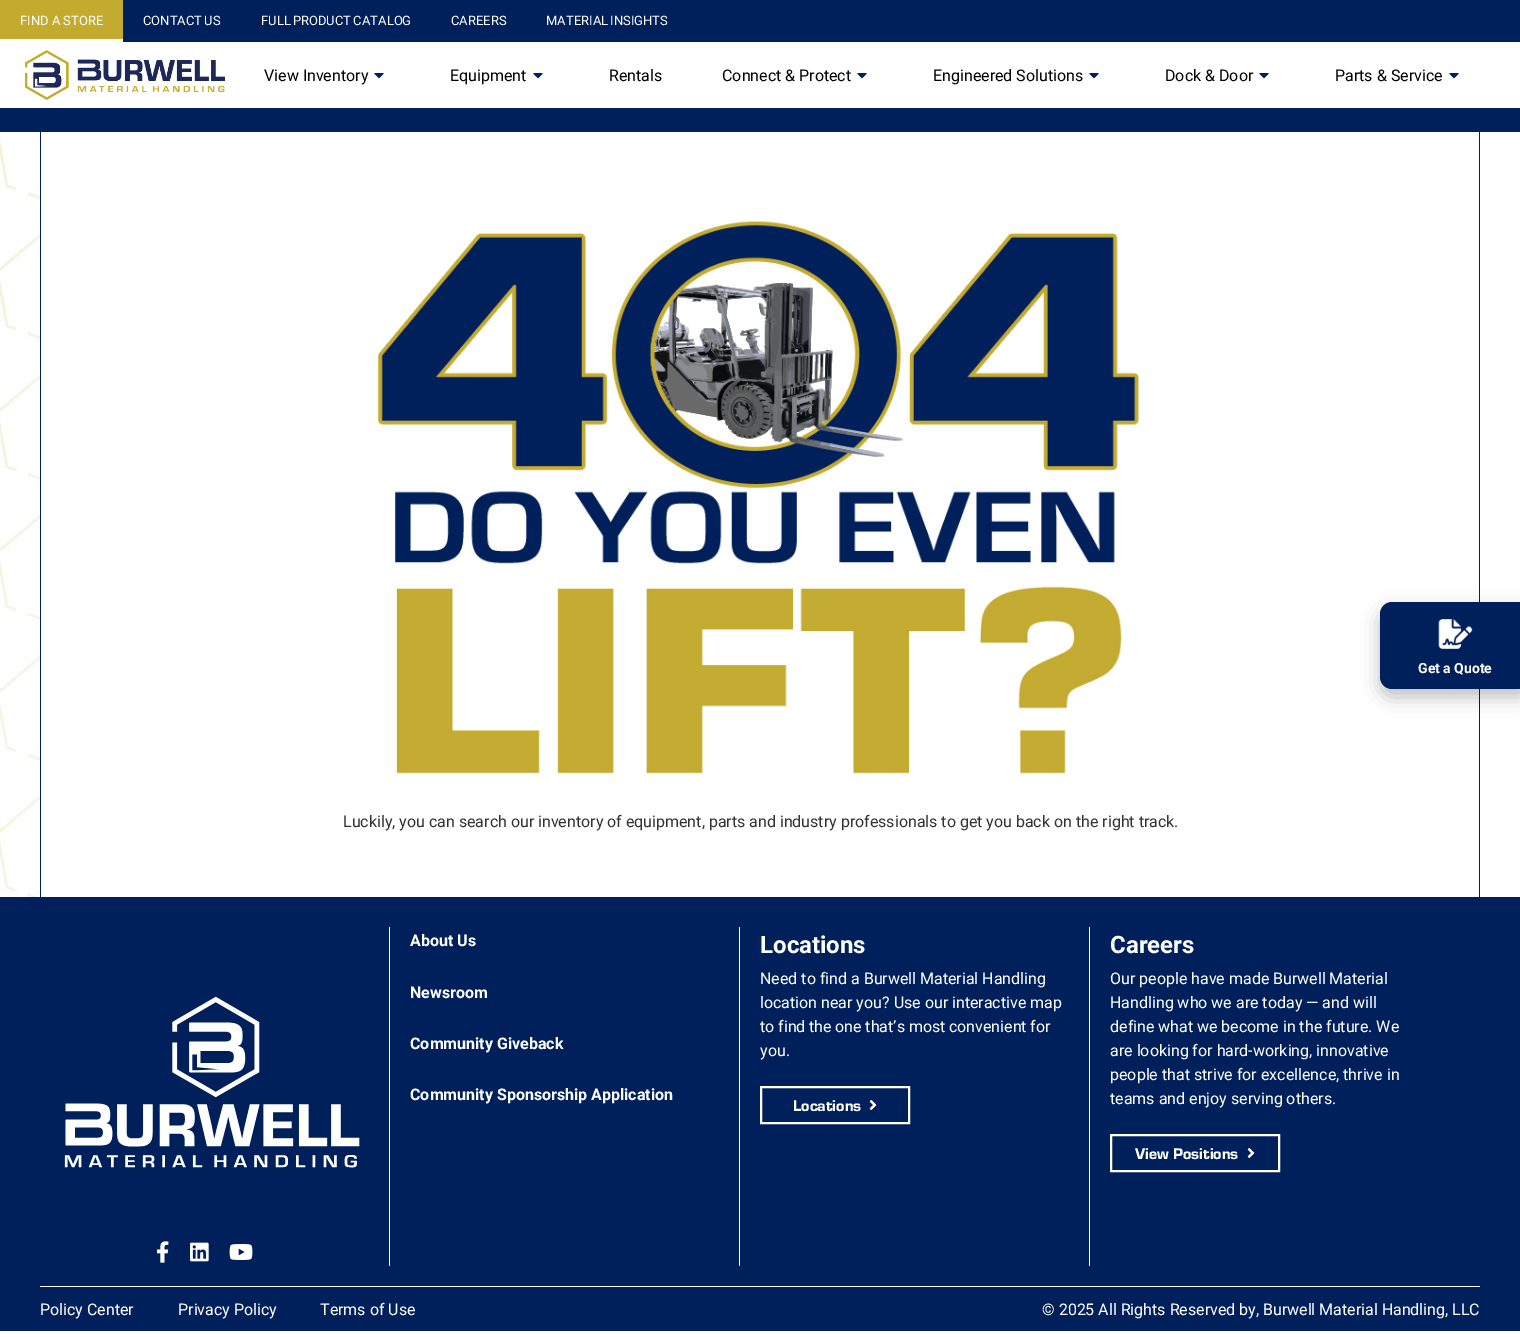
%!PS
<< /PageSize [1520 1337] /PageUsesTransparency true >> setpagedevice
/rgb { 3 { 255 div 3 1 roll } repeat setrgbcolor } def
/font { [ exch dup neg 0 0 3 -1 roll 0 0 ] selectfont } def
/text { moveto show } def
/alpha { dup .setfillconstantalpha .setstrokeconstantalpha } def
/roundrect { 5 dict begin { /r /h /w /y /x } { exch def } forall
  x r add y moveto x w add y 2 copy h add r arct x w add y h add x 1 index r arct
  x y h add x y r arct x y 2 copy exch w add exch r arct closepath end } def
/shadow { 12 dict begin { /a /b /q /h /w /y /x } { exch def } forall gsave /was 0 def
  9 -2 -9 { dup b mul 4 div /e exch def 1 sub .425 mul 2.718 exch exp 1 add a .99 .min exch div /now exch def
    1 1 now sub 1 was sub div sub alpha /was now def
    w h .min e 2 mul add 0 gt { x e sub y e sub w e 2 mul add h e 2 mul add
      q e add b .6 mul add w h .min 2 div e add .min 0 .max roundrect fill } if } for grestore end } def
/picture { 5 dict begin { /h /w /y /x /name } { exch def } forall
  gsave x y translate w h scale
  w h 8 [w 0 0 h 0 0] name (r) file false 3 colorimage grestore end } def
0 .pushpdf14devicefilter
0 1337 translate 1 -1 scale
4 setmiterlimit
255 255 255 rgb
0 0 1520 1337 rectfill
0 32 91 rgb
123 0 1397 42 rectfill
195 171 47 rgb
0 0 123 39 rectfill
(img_01.rgb) 25 50 200 50 picture
(img_02.rgb) 374 73 10 6 picture
(img_02.rgb) 533 73 10 6 picture
(img_02.rgb) 857 73 10 6 picture
(img_02.rgb) 1089 73 10 6 picture
(img_02.rgb) 1259 73 10 6 picture
(img_02.rgb) 1449 73 10 6 picture
0 32 91 rgb
0 108 1520 24 rectfill
(img_03.rgb) 0 132 40 765 picture
0 897 1520 434 rectfill
1479 132 1 765 rectfill
0 0 0 rgb
1380 610 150 87 12 9 0.25 shadow
0 32 91 rgb
1392 602 moveto 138 0 rlineto 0 87 rlineto -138 0 rlineto -6.5 0 -12 -5.5 -12 -12 rcurveto 0 -63 rlineto 0 -6.5 5.5 -12 12 -12 rcurveto closepath fill
(img_04.rgb) 1438 619 35 30 picture
255 255 255 rgb
389 927 1 339 rectfill
(img_05.rgb) 64 996 296 172 picture
(img_06.rgb) 156 1241 13 22 picture
(img_07.rgb) 190 1242 19 20 picture
(img_08.rgb) 229 1244 24 16 picture
739 927 1 339 rectfill
1089 927 1 339 rectfill
2 setlinewidth
761 1087 148 36 rectstroke
(img_09.rgb) 869 1100 8 10 picture
1111 1135 168 36 rectstroke
(img_09.rgb) 1247 1148 8 10 picture
40 1286 1440 1 rectfill
0 32 91 rgb
40 132 1 765 rectfill
(img_10.rgb) 378 221 762 553 picture
/Roboto-Regular 13 font
255 255 255 rgb
(FIND A STORE) 20 25 text
143 25 moveto -1 0 32 (CONTACT US) widthshow
261 25 moveto -1 0 32 (FULL PRODUCT CATALOG) widthshow
(CAREERS) 451 25 text
546 25 moveto -1 0 32 (MATERIAL INSIGHTS) widthshow
/Roboto-Regular 16 font
0 0 0 rgb
(View Inventory) 264 81 text
(Equipment) 450 81 text
(Rentals) 609 81 text
(Connect & Protect) 722 81 text
(Engineered Solutions) 933 81 text
(Dock & Door) 1165 81 text
(Parts & Service) 1335 81 text
/Roboto-Bold 14 font
255 255 255 rgb
(Get a Quote) 1418 673 text
/Roboto-Bold 16 font
(About Us) 410 946 text
(Newsroom) 410 998 text
(Community Giveback) 410 1049 text
(Community Sponsorship Application) 410 1100 text
/Roboto-Bold 24 font
(Locations) 760 953 text
/Roboto-Regular 16 font
(Need to find a Burwell Material Handling) 760 984 text
(location near you? Use our interactive map) 760 1008 text
760 1032 moveto -0.25 0 32 (to find the one that’s most convenient for) widthshow
(you.) 760 1056 text
/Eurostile-Black 16 font
(Locations) 793 1111 text
/Roboto-Bold 24 font
(Careers) 1110 953 text
/Roboto-Regular 16 font
(Our people have made Burwell Material) 1110 984 text
(Handling who we are today — and will) 1110 1008 text
(define what we become in the future. We) 1110 1032 text
(are looking for hard-working, innovative) 1110 1056 text
(people that strive for excellence, thrive in) 1110 1080 text
(teams and enjoy serving others.) 1110 1104 text
/Eurostile-Black 16 font
(View Positions) 1135 1159 text
/Roboto-Regular 16 font
(Policy Center) 40 1315 text
(Privacy Policy) 178 1315 text
(Terms of Use) 320 1315 text
(© 2025 All Rights Reserved by, Burwell Material Handling, LLC) 1042 1315 text
51 51 51 rgb
(Luckily, you can search our inventory of equipment, parts and industry professionals to get you back on the right track.) 343 827 text
.poppdf14devicefilter showpage
